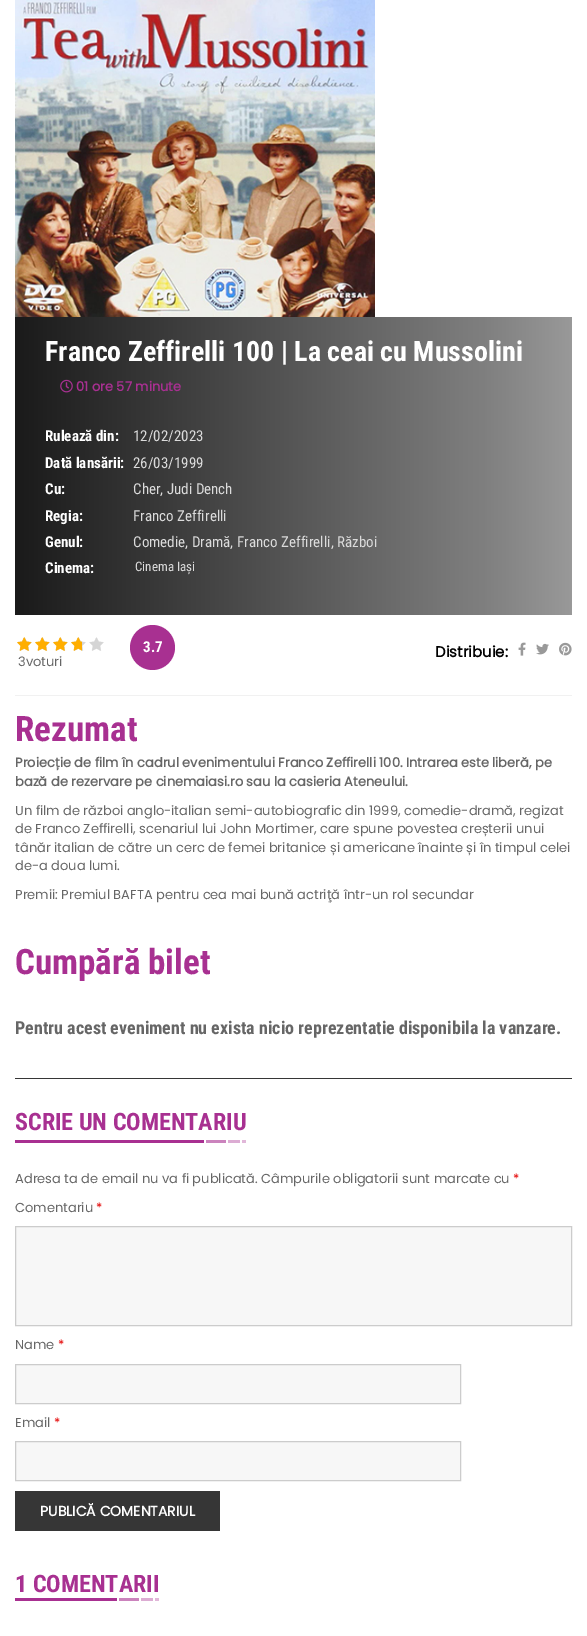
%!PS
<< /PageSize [587 1636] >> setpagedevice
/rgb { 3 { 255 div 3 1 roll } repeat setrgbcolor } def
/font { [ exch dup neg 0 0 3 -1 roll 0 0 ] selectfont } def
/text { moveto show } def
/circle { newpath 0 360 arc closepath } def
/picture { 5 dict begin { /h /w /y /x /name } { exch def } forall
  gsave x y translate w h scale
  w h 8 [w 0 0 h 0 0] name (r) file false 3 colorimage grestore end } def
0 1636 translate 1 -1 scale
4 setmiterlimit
255 255 255 rgb
0 0 587 1636 rectfill
(img_01.rgb) 15 0 360 317 picture
gsave 15 317 moveto 557 0 rlineto 0 298 rlineto -557 0 rlineto closepath clip newpath
<< /ShadingType 2 /ColorSpace /DeviceRGB /Coords [15 466 572 466] /Extend [true true] /Function << /FunctionType 3 /Domain [0 1] /Functions [<< /FunctionType 2 /Domain [0 1] /C0 [0.102 0.102 0.102] /C1 [0.502 0.502 0.502] /N 1 >> << /FunctionType 2 /Domain [0 1] /C0 [0.502 0.502 0.502] /C1 [0.6 0.6 0.6] /N 1 >>] /Bounds [0.85] /Encode [0 1 0 1] >> >> shfill grestore
(img_02.rgb) 60 379 13 14 picture
241 241 241 rgb
15 695 557 1 rectfill
(img_03.rgb) 17 637 87 14 picture
(img_04.rgb) 17 637 65 14 picture
168 48 145 rgb
152.5 647.5 22.5 circle fill
(img_05.rgb) 518 642 8 14 picture
(img_06.rgb) 536 643 13 12 picture
(img_07.rgb) 559 642 13 14 picture
54 54 54 rgb
15 1078 557 1 rectfill
168 48 145 rgb
15 1140 231 3 rectfill
(img_08.rgb) 204 1140 42 3 picture
247 247 247 rgb
15.5 1226.5 moveto 556 0 rlineto 0 99 rlineto -556 0 rlineto closepath gsave fill grestore
204 204 204 rgb
stroke
247 247 247 rgb
15.5 1364.5 moveto 445 0 rlineto 0 39 rlineto -445 0 rlineto closepath gsave fill grestore
204 204 204 rgb
stroke
247 247 247 rgb
15.5 1441.5 moveto 445 0 rlineto 0 39 rlineto -445 0 rlineto closepath gsave fill grestore
204 204 204 rgb
stroke
54 54 54 rgb
15 1491 205 40 rectfill
168 48 145 rgb
15 1598 144 3 rectfill
(img_08.rgb) 117 1598 42 3 picture
/RobotoCondensed-Bold 28 font
255 255 255 rgb
(Franco Zeffirelli 100 | La ceai cu Mussolini) 45 361 text
/Poppins-Bold 13 font
168 48 145 rgb
(01 ore 57 minute) 76 391 text
/RobotoCondensed-Bold 15 font
255 255 255 rgb
(Rulează din:) 45 441 text
/RobotoCondensed-Regular 15 font
219 219 219 rgb
(12/02/2023) 133 441 text
/RobotoCondensed-Bold 15 font
255 255 255 rgb
(Dată lansării:) 45 468 text
/RobotoCondensed-Regular 15 font
219 219 219 rgb
(26/03/1999) 133 468 text
/RobotoCondensed-Bold 15 font
255 255 255 rgb
(Cu:) 45 494 text
/RobotoCondensed-Regular 15 font
219 219 219 rgb
(Cher, Judi Dench) 133 494 text
/RobotoCondensed-Bold 15 font
255 255 255 rgb
(Regia:) 45 521 text
/RobotoCondensed-Regular 15 font
219 219 219 rgb
(Franco Zeffirelli) 133 521 text
/RobotoCondensed-Bold 15 font
255 255 255 rgb
(Genul:) 45 547 text
/RobotoCondensed-Regular 15 font
219 219 219 rgb
(Comedie, Dramă, Franco Zeffirelli, Război) 133 547 text
/RobotoCondensed-Bold 15 font
255 255 255 rgb
(Cinema:) 45 573 text
/RobotoCondensed-Regular 13 font
219 219 219 rgb
(Cinema Iași) 135 571 text
/RobotoCondensed-Bold 15 font
255 255 255 rgb
(3.7) 143 652 text
/Poppins-Regular 13 font
102 102 102 rgb
(3voturi) 18 666 text
/Poppins-Bold 15 font
0 0 0 rgb
(Distribuie:) 435 657 text
/RobotoCondensed-Bold 35 font
168 48 145 rgb
(Rezumat) 15 741 text
/Poppins-Bold 13 font
102 102 102 rgb
(Proiecție de film în cadrul evenimentului Franco Zeffirelli 100. Intrarea este liberă, pe) 15 767 text
(bază de rezervare pe cinemaiasi.ro sau la casieria Ateneului.) 15 786 text
/Poppins-Regular 13 font
(Un film de război anglo-italian semi-autobiografic din 1999, comedie-dramă, regizat) 15 815 text
(de Franco Zeffirelli, scenariul lui John Mortimer, care spune povestea creșterii unui) 15 833 text
(tânăr italian de către un cerc de femei britanice și americane înainte și în timpul celei) 15 852 text
(de-a doua lumi.) 15 870 text
(Premii: Premiul BAFTA pentru cea mai bună actriţă într-un rol secundar) 15 899 text
/RobotoCondensed-Bold 35 font
168 48 145 rgb
(Cumpără bilet) 15 974 text
/RobotoCondensed-Bold 18 font
102 102 102 rgb
(Pentru acest eveniment nu exista nicio reprezentatie disponibila la vanzare.) 15 1034 text
/RobotoCondensed-Bold 24 font
168 48 145 rgb
(SCRIE UN COMENTARIU) 15 1130 text
/Poppins-Regular 13 font
102 102 102 rgb
(Adresa ta de email nu va fi publicată. Câmpurile obligatorii sunt marcate cu) 15 1183 text
228 0 0 rgb
(*) 513 1183 text
102 102 102 rgb
(Comentariu) 15 1212 text
228 0 0 rgb
(*) 96 1212 text
102 102 102 rgb
(Name) 15 1349 text
228 0 0 rgb
(*) 58 1349 text
102 102 102 rgb
(Email) 15 1427 text
228 0 0 rgb
(*) 54 1427 text
/Poppins-Bold 14 font
255 255 255 rgb
(PUBLICĂ COMENTARIUL) 40 1516 text
/RobotoCondensed-Bold 24 font
168 48 145 rgb
(1 COMENTARII) 15 1592 text
showpage
